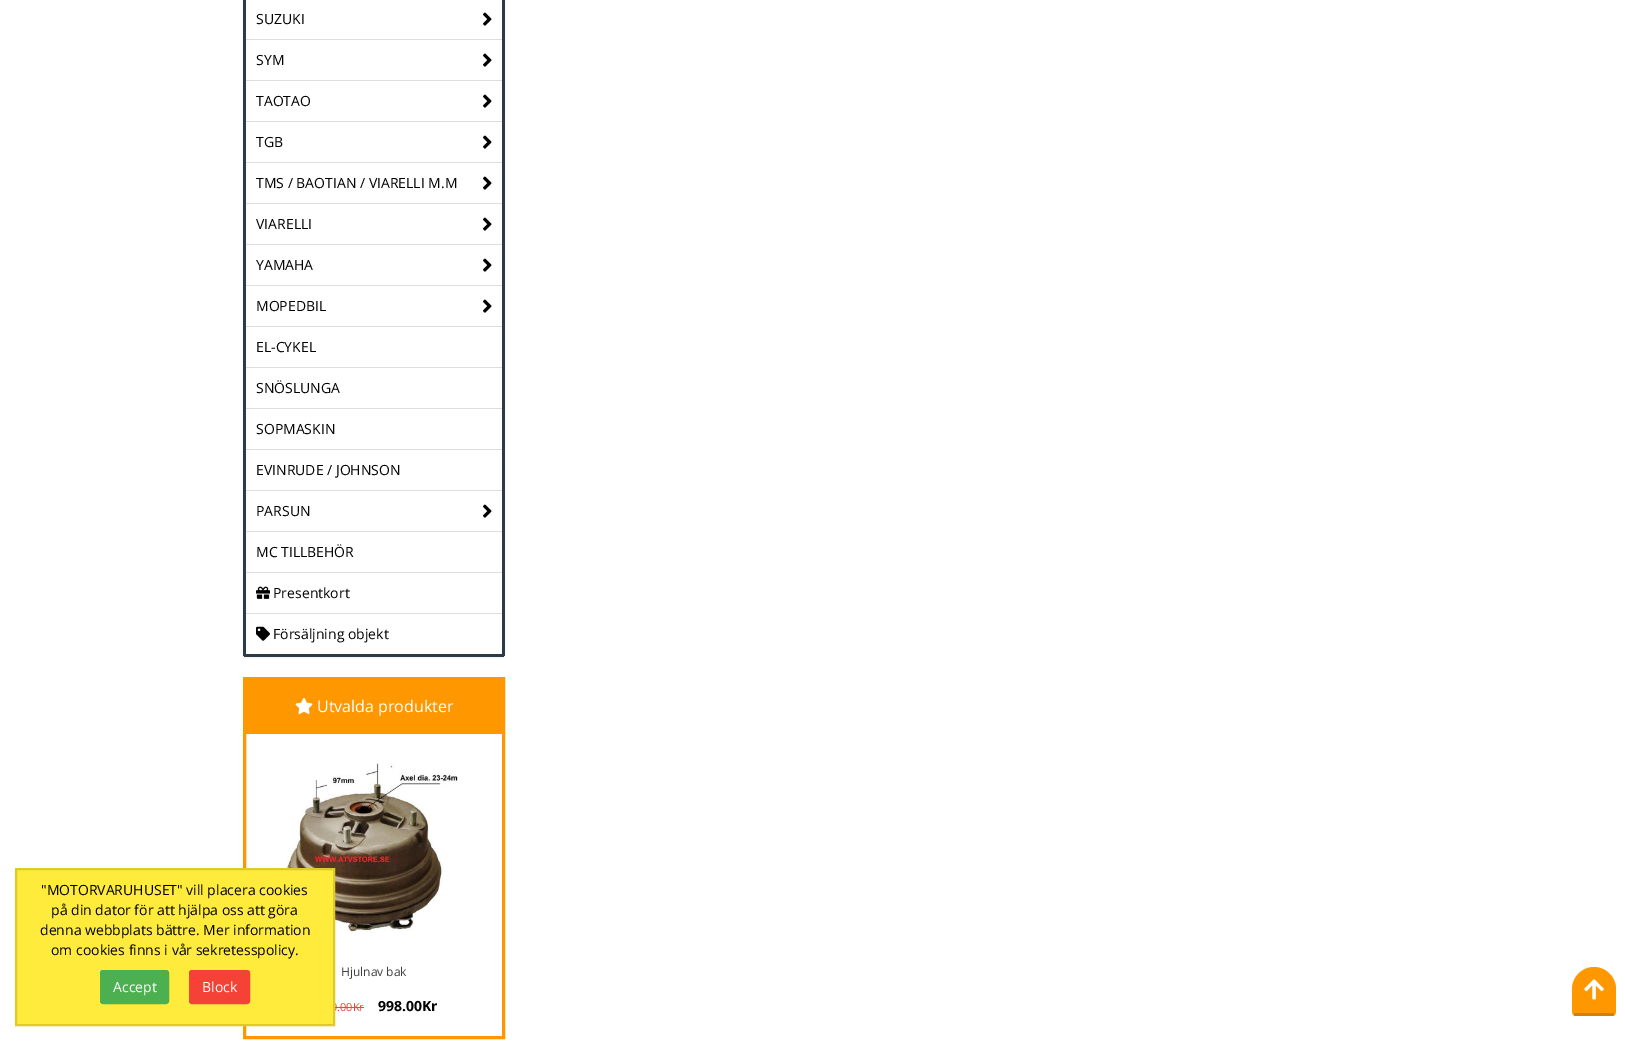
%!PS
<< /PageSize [1625 1041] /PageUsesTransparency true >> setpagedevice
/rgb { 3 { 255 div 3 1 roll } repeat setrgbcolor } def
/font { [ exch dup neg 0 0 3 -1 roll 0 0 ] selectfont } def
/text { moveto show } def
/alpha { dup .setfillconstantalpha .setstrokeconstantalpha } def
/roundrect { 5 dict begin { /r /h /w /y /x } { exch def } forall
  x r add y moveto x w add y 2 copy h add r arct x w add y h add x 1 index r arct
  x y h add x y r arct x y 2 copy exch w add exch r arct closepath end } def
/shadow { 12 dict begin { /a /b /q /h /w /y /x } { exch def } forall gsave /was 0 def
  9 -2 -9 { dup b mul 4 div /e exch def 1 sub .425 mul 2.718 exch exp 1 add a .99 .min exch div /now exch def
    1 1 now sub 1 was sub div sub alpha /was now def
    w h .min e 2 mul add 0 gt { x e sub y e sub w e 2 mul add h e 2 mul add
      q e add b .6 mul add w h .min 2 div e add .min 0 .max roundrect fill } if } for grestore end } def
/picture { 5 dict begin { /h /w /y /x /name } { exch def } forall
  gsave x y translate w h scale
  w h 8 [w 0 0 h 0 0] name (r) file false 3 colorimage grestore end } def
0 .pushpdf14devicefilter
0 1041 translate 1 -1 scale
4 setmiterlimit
255 255 255 rgb
0 0 1625 1041 rectfill
0 0 0 rgb
243 -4 262 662 2 0.5 0.05 shadow
255 255 255 rgb
243 -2 moveto 262 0 rlineto 0 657 rlineto 0 1 -1 2 -2 2 rcurveto -258 0 rlineto -1 0 -2 -1 -2 -2 rcurveto closepath fill
42 59 74 rgb
502 0 3 656 rectfill
244 654 260 3 rectfill
243 0 3 656 rectfill
221 221 221 rgb
246 39 256 1 rectfill
(img_01.rgb) 483 12 9 14 picture
246 80 256 1 rectfill
(img_01.rgb) 483 53 9 14 picture
246 121 256 1 rectfill
(img_01.rgb) 483 94 9 14 picture
246 162 256 1 rectfill
(img_01.rgb) 483 135 9 14 picture
246 203 256 1 rectfill
(img_01.rgb) 483 176 9 14 picture
246 244 256 1 rectfill
(img_01.rgb) 483 217 9 14 picture
246 285 256 1 rectfill
(img_01.rgb) 483 258 9 14 picture
246 326 256 1 rectfill
(img_01.rgb) 483 299 9 14 picture
246 367 256 1 rectfill
246 408 256 1 rectfill
246 449 256 1 rectfill
246 490 256 1 rectfill
246 531 256 1 rectfill
(img_01.rgb) 483 504 9 14 picture
246 572 256 1 rectfill
246 613 256 1 rectfill
(img_02.rgb) 256 586 14 13 picture
(img_03.rgb) 256 626 14 15 picture
255 152 0 rgb
3 setlinewidth
244.5 678.5 259 359 rectstroke
246 680 256 54 rectfill
(img_04.rgb) 295 698 18 16 picture
(img_05.rgb) 282 763 176 172 picture
244 67 54 rgb
335 1007 29 1 rectfill
255 152 0 rgb
1594 967 moveto 12 0 22 10 22 22 rcurveto 0 23 rlineto 0 2 -2 4 -4 4 rcurveto -36 0 rlineto -2 0 -4 -2 -4 -4 rcurveto 0 -23 rlineto 0 -12 10 -22 22 -22 rcurveto closepath fill
212 128 3 rgb
1574 1013 40 3 rectfill
(img_06.rgb) 1584 979 20 21 picture
/OpenSans-Regular 14 font
0 0 0 rgb
(SUZUKI) 256 24 text
(SYM) 256 65 text
(TAOTAO) 256 106 text
(TGB) 256 147 text
(TMS / BAOTIAN / VIARELLI M.M) 256 188 text
(VIARELLI) 256 229 text
(YAMAHA) 256 270 text
(MOPEDBIL) 256 311 text
(EL-CYKEL) 256 352 text
(SNÖSLUNGA) 256 393 text
(SOPMASKIN) 256 434 text
(EVINRUDE / JOHNSON) 256 475 text
(PARSUN) 256 516 text
(MC TILLBEHÖR) 256 557 text
(Presentkort) 273 598 text
(Försäljning objekt) 273 639 text
/OpenSans-Regular 16 font
255 255 255 rgb
(Utvalda produkter) 317 712 text
/OpenSans-Regular 12 font
62 62 62 rgb
(Hjulnav bak) 341 976 text
/OpenSans-Regular 11 font
244 67 54 rgb
(9.00Kr) 331 1011 text
255 235 59 rgb
16 869 moveto 318 0 rlineto 0 156 rlineto -318 0 rlineto closepath gsave fill grestore
222 203 38 rgb
2 setlinewidth
stroke
244 67 54 rgb
189.5 970.5 60 33 2.5 roundrect gsave fill grestore
1 setlinewidth
stroke
/OpenSans-Regular 14 font
255 255 255 rgb
(Block) 202 992 text
76 175 80 rgb
100.5 970.5 68 33 2.5 roundrect gsave fill grestore
stroke
255 255 255 rgb
(Accept) 113 992 text
0 0 0 rgb
(om cookies finns i vår sekretesspolicy.) 51 955 text
(denna webbplats bättre. Mer information) 40 935 text
(på din dator för att hjälpa oss att göra) 51 915 text
("MOTORVARUHUSET" vill placera cookies) 41 895 text
/OpenSans-Bold 14 font
(998.00Kr) 378 1011 text
.poppdf14devicefilter showpage
